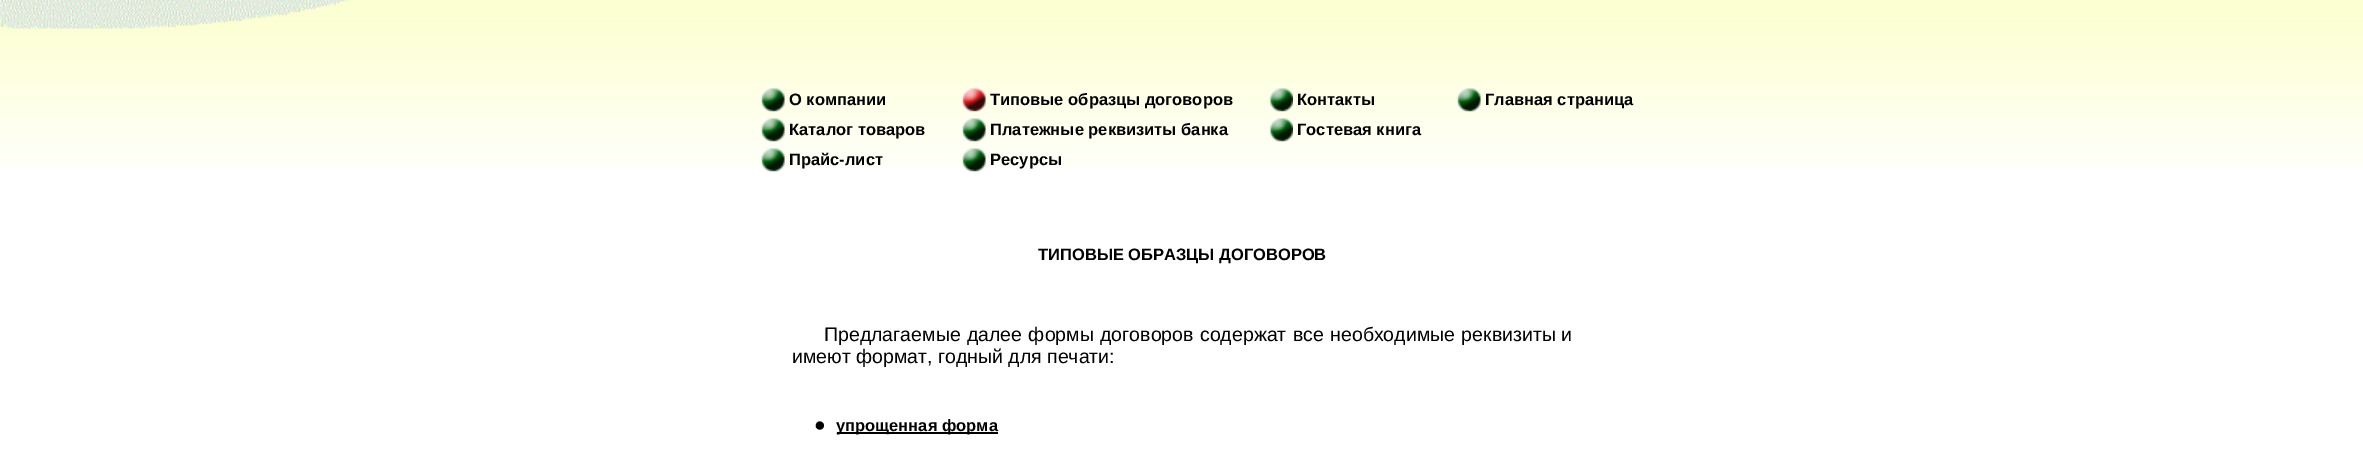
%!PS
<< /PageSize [2363 467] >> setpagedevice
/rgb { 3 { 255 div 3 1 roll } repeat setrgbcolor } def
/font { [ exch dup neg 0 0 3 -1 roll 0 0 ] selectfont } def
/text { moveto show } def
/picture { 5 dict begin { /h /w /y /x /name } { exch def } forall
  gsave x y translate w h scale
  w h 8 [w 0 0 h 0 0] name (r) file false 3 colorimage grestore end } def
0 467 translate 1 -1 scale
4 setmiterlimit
255 255 255 rgb
0 0 2363 467 rectfill
(img_01.rgb) 0 0 2363 168 picture
(img_02.rgb) 0 0 353 29 picture
(img_03.rgb) 760 88 25 24 picture
(img_04.rgb) 961 88 25 24 picture
(img_05.rgb) 1269 88 24 24 picture
(img_06.rgb) 1456 88 25 24 picture
(img_07.rgb) 760 118 25 24 picture
(img_08.rgb) 961 118 25 24 picture
(img_09.rgb) 1269 118 24 24 picture
(img_10.rgb) 760 148 25 24 picture
(img_11.rgb) 961 148 25 24 picture
0 0 0 rgb
837 432 161 2 rectfill
/LiberationSans-Bold 16.5 font
(О компании) 789 105 text
(Типовые образцы договоров) 990 105 text
(Контакты) 1297 105 text
(Главная страница) 1485 105 text
(Каталог товаров) 789 135 text
(Платежные реквизиты банка) 990 135 text
(Гостевая книга) 1297 135 text
(Прайс-лист) 789 165 text
(Ресурсы) 990 165 text
(ТИПОВЫЕ ОБРАЗЦЫ ДОГОВОРОВ) 1038 260 text
/LiberationSans-Regular 19.5 font
824 341 moveto 1 0 32 (Предлагаемые далее формы договоров содержат все необходимые реквизиты) widthshow
(и) 1561 341 text
(имеют формат, годный для печати:) 792 363 text
(●) 814 431 text
/LiberationSans-Bold 16.5 font
(упрощенная форма) 836 431 text
showpage
